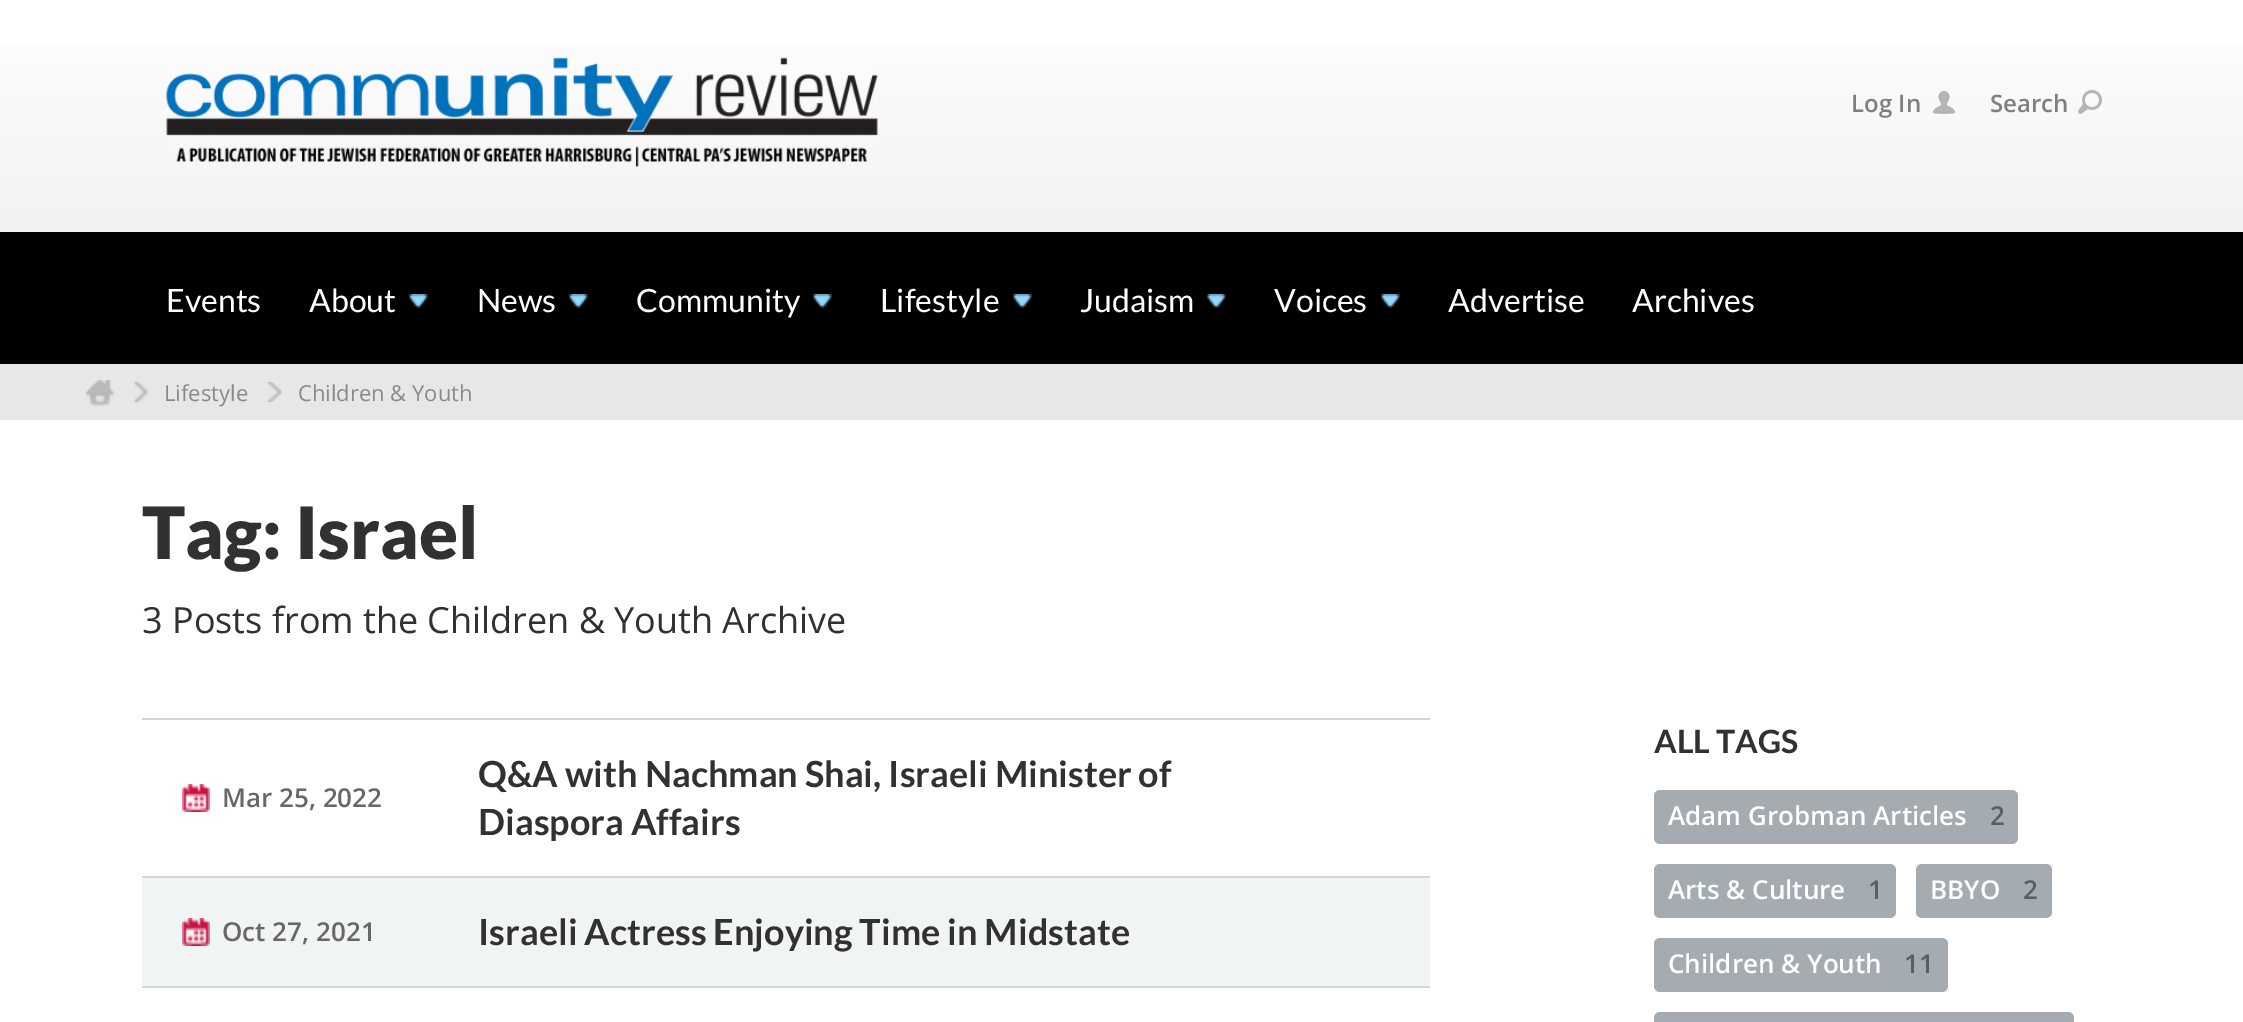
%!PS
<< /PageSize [2243 1022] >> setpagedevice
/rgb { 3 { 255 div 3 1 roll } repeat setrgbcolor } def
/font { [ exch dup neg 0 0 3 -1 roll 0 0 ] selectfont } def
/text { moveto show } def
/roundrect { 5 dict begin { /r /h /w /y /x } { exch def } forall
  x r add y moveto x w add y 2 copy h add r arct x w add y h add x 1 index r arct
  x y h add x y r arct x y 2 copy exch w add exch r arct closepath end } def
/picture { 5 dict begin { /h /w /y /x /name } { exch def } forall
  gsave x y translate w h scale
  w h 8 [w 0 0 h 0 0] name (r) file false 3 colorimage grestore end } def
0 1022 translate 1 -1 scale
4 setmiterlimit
255 255 255 rgb
0 0 2243 1022 rectfill
gsave 0 45 moveto 2243 0 rlineto 0 187 rlineto -2243 0 rlineto closepath clip newpath
<< /ShadingType 2 /ColorSpace /DeviceRGB /Coords [1122 0 1122 232] /Extend [true true] /Function << /FunctionType 2 /Domain [0 1] /C0 [1 1 1] /C1 [0.949 0.949 0.949] /N 1 >> >> shfill grestore
(img_01.rgb) 166 57 712 111 picture
(img_02.rgb) 1932 90 24 24 picture
(img_03.rgb) 2078 90 24 24 picture
0 0 0 rgb
0 232 2243 132 rectfill
(img_04.rgb) 408 294 20 14 picture
(img_04.rgb) 568 294 20 14 picture
(img_04.rgb) 812 294 20 14 picture
(img_04.rgb) 1012 294 20 14 picture
(img_04.rgb) 1206 294 20 14 picture
(img_04.rgb) 1380 294 20 14 picture
231 231 231 rgb
0 364 2243 56 rectfill
(img_05.rgb) 86 380 28 26 picture
(img_06.rgb) 134 382 14 20 picture
(img_06.rgb) 268 382 14 20 picture
213 213 213 rgb
142 718 1288 2 rectfill
142 876 1288 2 rectfill
(img_07.rgb) 182 784 28 28 picture
240 244 245 rgb
142 878 1288 108 rectfill
213 213 213 rgb
142 986 1288 2 rectfill
(img_08.rgb) 182 918 28 28 picture
164 172 177 rgb
1654 790 364 54 6 roundrect fill
1654 864 242 54 6 roundrect fill
1916 864 136 54 6 roundrect fill
1654 938 294 54 6 roundrect fill
1654 1012 420 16 6 roundrect fill
/OpenSans-SemiBold 24 font
127 127 127 rgb
(Log In) 1851 112 text
(Search) 1990 112 text
/Lato-Regular 32 font
255 255 255 rgb
(Events) 166 312 text
(About) 309 312 text
(News) 477 312 text
(Community) 636 312 text
(Lifestyle) 880 312 text
(Judaism) 1080 312 text
(Voices) 1274 312 text
(Advertise) 1448 312 text
(Archives) 1632 312 text
/OpenSans-Regular 22 font
138 137 137 rgb
(Lifestyle) 164 401 text
(Children & Youth) 298 401 text
/Lato-Black 72 font
49 49 49 rgb
(Tag: Israel) 142 559 text
/OpenSans-Regular 36 font
(3 Posts from the Children & Youth Archive) 142 633 text
/OpenSans-SemiBold 26 font
103 103 103 rgb
(Mar 25, 2022) 222 807 text
/Lato-Bold 36 font
49 49 49 rgb
(Q&A with Nachman Shai, Israeli Minister of) 478 787 text
(Diaspora Affairs) 478 835 text
/OpenSans-SemiBold 26 font
103 103 103 rgb
(Oct 27, 2021) 222 941 text
/Lato-Bold 36 font
49 49 49 rgb
(Israeli Actress Enjoying Time in Midstate) 478 945 text
/Lato-Bold 32 font
(ALL TAGS) 1654 753 text
/OpenSans-SemiBold 26 font
255 255 255 rgb
(Adam Grobman Articles) 1668 825 text
87 95 99 rgb
(2) 1990 825 text
255 255 255 rgb
(Arts & Culture) 1668 899 text
87 95 99 rgb
(1) 1868 899 text
255 255 255 rgb
(BBYO) 1930 899 text
87 95 99 rgb
(2) 2023 899 text
255 255 255 rgb
(Children & Youth) 1668 973 text
87 95 99 rgb
(11) 1904 973 text
showpage
